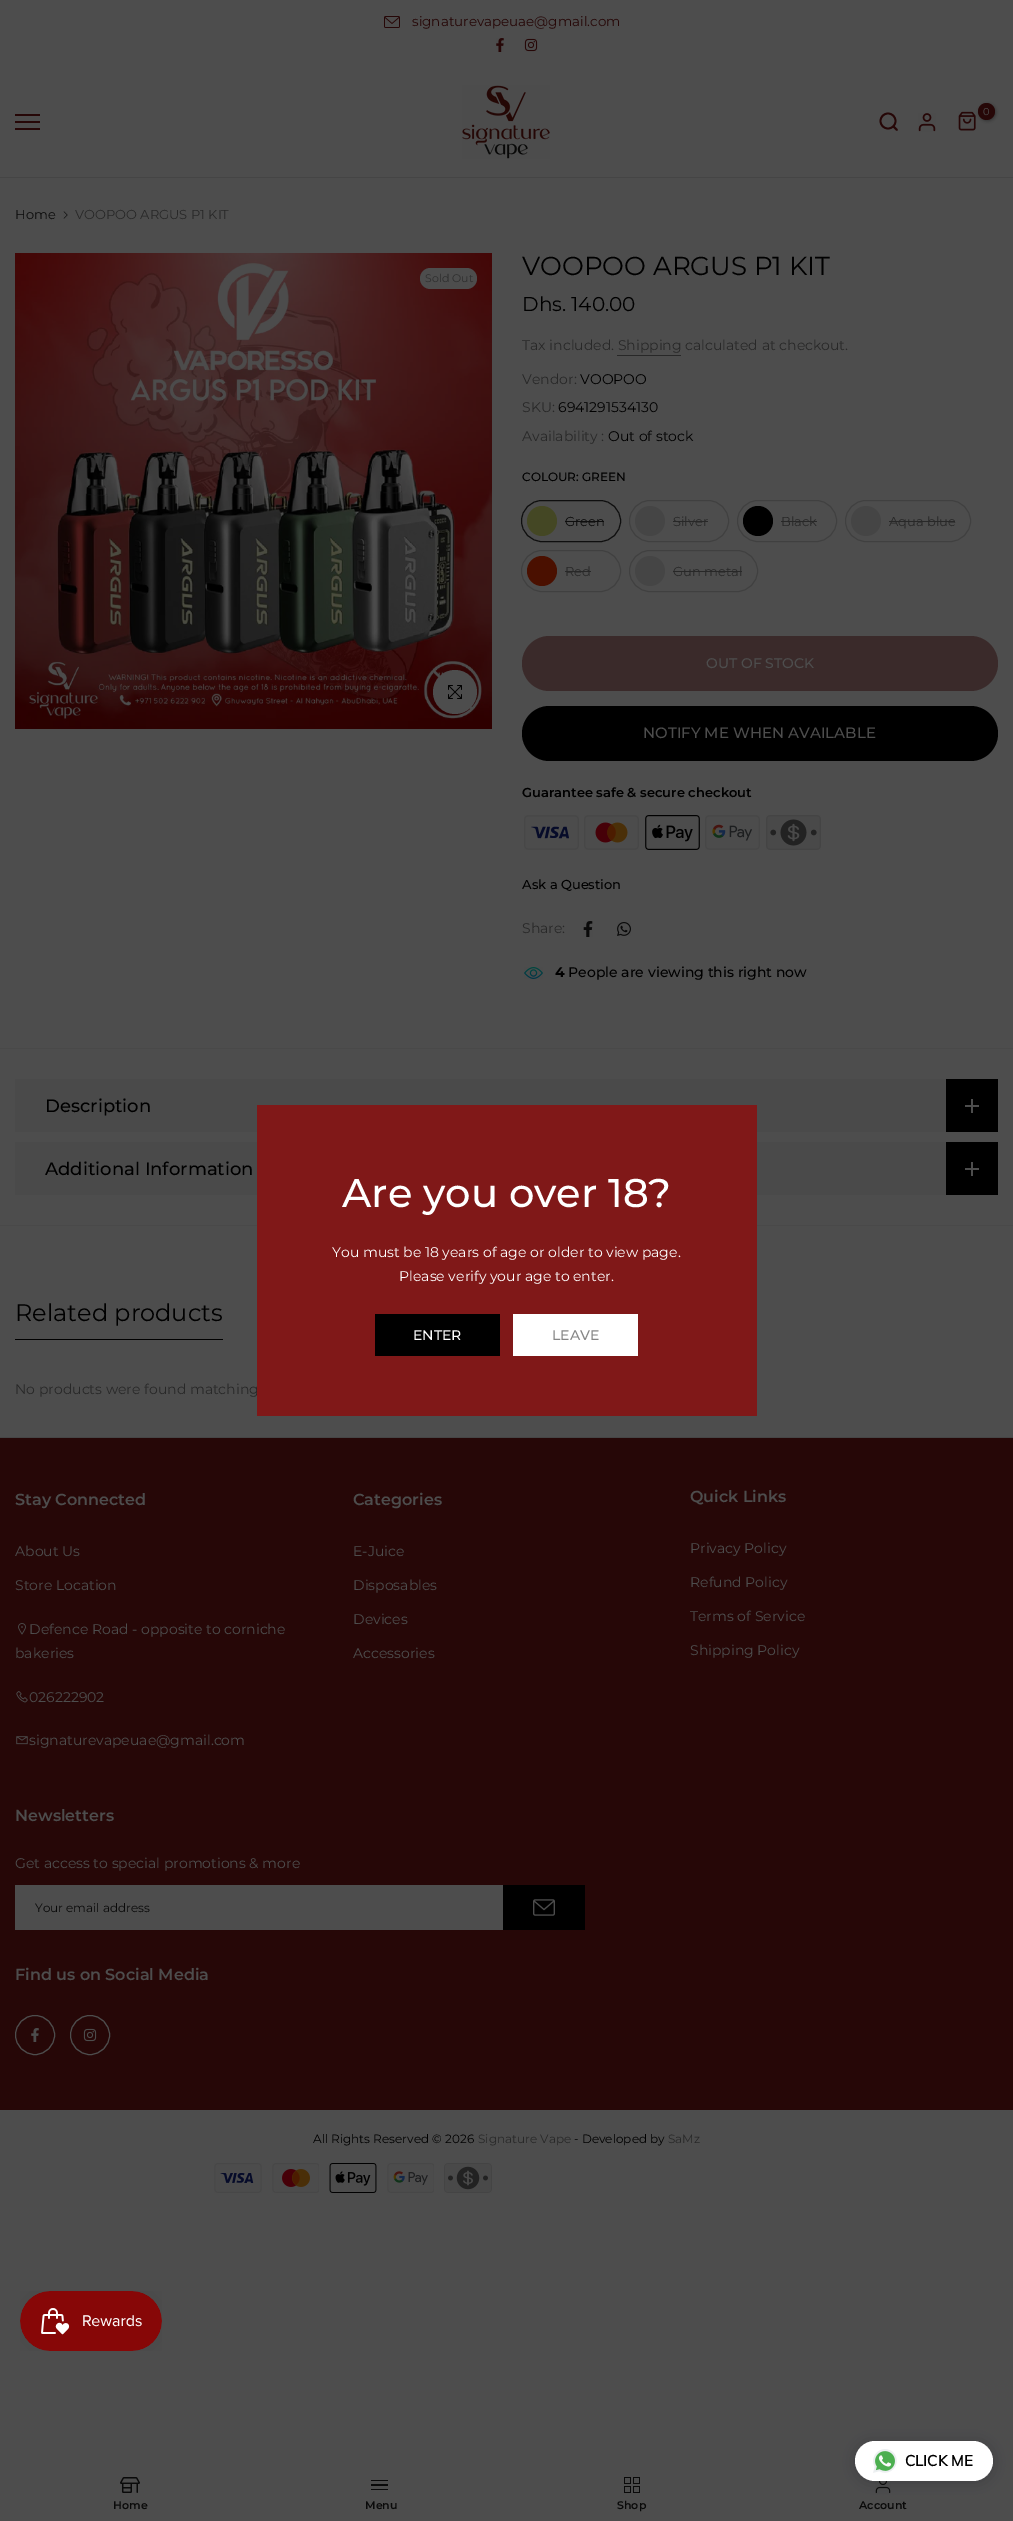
%!PS
<< /PageSize [1013 2521] /PageUsesTransparency true >> setpagedevice
/rgb { 3 { 255 div 3 1 roll } repeat setrgbcolor } def
/font { [ exch dup neg 0 0 3 -1 roll 0 0 ] selectfont } def
/text { moveto show } def
/alpha { dup .setfillconstantalpha .setstrokeconstantalpha } def
/circle { newpath 0 360 arc closepath } def
/roundrect { 5 dict begin { /r /h /w /y /x } { exch def } forall
  x r add y moveto x w add y 2 copy h add r arct x w add y h add x 1 index r arct
  x y h add x y r arct x y 2 copy exch w add exch r arct closepath end } def
/shadow { 12 dict begin { /a /b /q /h /w /y /x } { exch def } forall gsave /was 0 def
  9 -2 -9 { dup b mul 4 div /e exch def 1 sub .425 mul 2.718 exch exp 1 add a .99 .min exch div /now exch def
    1 1 now sub 1 was sub div sub alpha /was now def
    w h .min e 2 mul add 0 gt { x e sub y e sub w e 2 mul add h e 2 mul add
      q e add b .6 mul add w h .min 2 div e add .min 0 .max roundrect fill } if } for grestore end } def
/picture { 5 dict begin { /h /w /y /x /name } { exch def } forall
  gsave x y translate w h scale
  w h 8 [w 0 0 h 0 0] name (r) file false 3 colorimage grestore end } def
0 .pushpdf14devicefilter
0 2521 translate 1 -1 scale
4 setmiterlimit
77 77 77 rgb
0 0 1013 2521 rectfill
(img_01.rgb) 384 16 16 12 picture
(img_02.rgb) 496 38 8 14 picture
(img_03.rgb) 524 38 14 14 picture
(img_04.rgb) 462 85 88 74 picture
38 7 7 rgb
1.8 setlinewidth
888 121 7.5 circle stroke
1 setlinecap
1 setlinejoin
897 130 moveto -3.5 -3.5 rlineto stroke
(img_05.rgb) 918 113 18 19 picture
(img_06.rgb) 958 111 18 20 picture
0 0 0 rgb
979 104 17 17 8.5 1.5 0.3 shadow
38 7 7 rgb
986.5 111.5 8.5 circle fill
15 114 25 2 rectfill
15 121 25 2 rectfill
15 128 25 2 rectfill
69 69 69 rgb
0 177 1013 1 rectfill
(img_07.rgb) 63 211 5 8 picture
(img_08.rgb) 15 253 477 476 picture
77 77 77 rgb
420 268 57 21 10.5 roundrect fill
455 692 22 circle fill
(img_09.rgb) 448 685 14 14 picture
40 40 40 rgb
617 355 64 1 rectfill
15 15 15 rgb
1 setlinewidth
0 setlinecap
0 setlinejoin
521.5 500.5 99 41 20.5 roundrect stroke
68 71 36 rgb
542 521 15 circle fill
64 64 64 rgb
629.5 500.5 99 41 20.5 roundrect stroke
69 69 69 rgb
650 521 15 circle fill
40 40 40 rgb
673 521 35 1 rectfill
64 64 64 rgb
737.5 500.5 99 41 20.5 roundrect stroke
0 0 0 rgb
758 521 15 circle fill
40 40 40 rgb
781 521 36 1 rectfill
64 64 64 rgb
845.5 500.5 125 41 20.5 roundrect stroke
69 69 69 rgb
866 521 15 circle fill
40 40 40 rgb
889 521 66 1 rectfill
64 64 64 rgb
521.5 550.5 99 41 20.5 roundrect stroke
74 16 0 rgb
542 571 15 circle fill
40 40 40 rgb
565 571 26 1 rectfill
64 64 64 rgb
629.5 550.5 128 41 20.5 roundrect stroke
69 69 69 rgb
650 571 15 circle fill
40 40 40 rgb
673 571 69 1 rectfill
58 42 42 rgb
522 636 476 55 27.5 roundrect fill
0 0 0 rgb
522 706 476 55 27.5 roundrect fill
(img_10.rgb) 524 815 55 35 picture
(img_11.rgb) 584 815 55 35 picture
(img_12.rgb) 645 815 55 35 picture
(img_13.rgb) 705 815 55 35 picture
(img_14.rgb) 766 815 55 35 picture
(img_15.rgb) 583 921 10 16 picture
(img_16.rgb) 617 922 14 14 picture
(img_17.rgb) 524 967 19 12 picture
73 73 73 rgb
0 1048 1013 1 rectfill
0 1225 1013 1 rectfill
74 74 74 rgb
15 1079 931 53 rectfill
0 0 0 rgb
946 1079 52 53 rectfill
77 77 77 rgb
971 1099 2 14 rectfill
965 1105 14 2 rectfill
74 74 74 rgb
15 1142 931 53 rectfill
0 0 0 rgb
946 1142 52 53 rectfill
77 77 77 rgb
971 1162 2 14 rectfill
965 1168 14 2 rectfill
0 0 0 rgb
15 1339 208 1 rectfill
38 7 7 rgb
0 1438 1013 672 rectfill
69 69 69 rgb
0 1437 1013 1 rectfill
(img_18.rgb) 18 1623 8 12 picture
(img_19.rgb) 16 1691 12 12 picture
(img_20.rgb) 16 1736 12 9 picture
77 77 77 rgb
15 1885 488 45 rectfill
0 0 0 rgb
503 1885 82 45 rectfill
(img_21.rgb) 533 1899 22 17 picture
77 77 77 rgb
35 2035 19.5 circle stroke
(img_22.rgb) 31 2028 8 14 picture
90 2035 19.5 circle stroke
(img_23.rgb) 83 2028 14 14 picture
(img_24.rgb) 214 2163 48 30 picture
(img_25.rgb) 272 2163 47 30 picture
(img_26.rgb) 329 2163 48 30 picture
(img_27.rgb) 387 2163 47 30 picture
(img_28.rgb) 444 2163 48 30 picture
(img_29.rgb) 20 2291 142 60 picture
(img_33.rgb) 875 2481 16 13 picture
32 33 36 rgb
855 2442 138 40 20 7.5 0.28 shadow
255 255 255 rgb
855 2441 138 40 20 roundrect fill
(img_30.rgb) 873 2449 24 24 picture
(img_31.rgb) 120 2477 20 16 picture
10 10 10 rgb
371 2480 17 1 rectfill
371 2484 17 2 rectfill
371 2489 17 1 rectfill
(img_32.rgb) 624 2477 16 16 picture
/Montserrat-Regular 13.5 font
38 7 7 rgb
(signaturevapeuae@gmail.com) 412 26 text
/Montserrat-Regular 10 font
77 77 77 rgb
(0) 983 115 text
/Montserrat-Regular 13 font
10 10 10 rgb
(Home) 15 219 text
40 40 40 rgb
(VOOPOO ARGUS P1 KIT) 75 219 text
/Montserrat-Regular 11 font
46 46 46 rgb
(Sold Out) 425 282 text
/Montserrat-Regular 26 font
0 0 0 rgb
(VOOPOO ARGUS P1 KIT) 522 275 text
/Montserrat-Regular 20 font
(Dhs. 140.00) 522 311 text
/Montserrat-Regular 14 font
40 40 40 rgb
(Tax included. Shipping calculated at checkout.) 522 350 text
(Vendor:) 522 384 text
0 0 0 rgb
(VOOPOO) 580 384 text
40 40 40 rgb
(SKU:) 522 412 text
0 0 0 rgb
(6941291534130) 558 412 text
40 40 40 rgb
(Availability :) 522 441 text
0 0 0 rgb
(Out of stock) 608 441 text
/Montserrat-Medium 12 font
(COLOUR: GREEN) 522 481 text
/Montserrat-Regular 13 font
10 10 10 rgb
(Green) 565 526 text
15 15 15 rgb
565 521 39 1 rectfill
40 40 40 rgb
(Silver) 673 526 text
(Black) 781 526 text
(Aqua blue) 889 526 text
(Red) 565 576 text
(Gun metal) 673 576 text
/Montserrat-Medium 14 font
77 77 77 rgb
(OUT OF STOCK) 706 668 text
/Montserrat-Medium 15 font
(NOTIFY ME WHEN AVAILABLE) 643 738 text
/Montserrat-SemiBold 13 font
0 0 0 rgb
(Guarantee safe & secure checkout) 522 797 text
/Montserrat-Medium 13 font
(Ask a Question) 522 889 text
/Montserrat-Regular 14 font
40 40 40 rgb
(Share:) 522 933 text
/Montserrat-Bold 14 font
0 0 0 rgb
(4) 555 977 text
/Montserrat-Medium 14 font
(People are viewing this right now) 568 977 text
/Montserrat-Medium 18 font
(Description) 45 1112 text
(Additional Information) 45 1175 text
/Montserrat-Regular 24 font
(Related products) 15 1321 text
/Montserrat-Regular 14 font
40 40 40 rgb
(No products were found matching) 15 1394 text
/Montserrat-SemiBold 16 font
77 77 77 rgb
(Stay Connected) 15 1505 text
/Montserrat-Regular 14 font
(About Us) 15 1556 text
(Store Location) 15 1590 text
(Defence Road - opposite to corniche) 29 1634 text
(bakeries) 15 1658 text
(026222902) 29 1702 text
(signaturevapeuae@gmail.com) 29 1745 text
/Montserrat-SemiBold 16 font
(Categories) 353 1505 text
/Montserrat-Regular 14 font
(E-Juice) 353 1556 text
(Disposables) 353 1590 text
(Devices) 353 1624 text
(Accessories) 353 1658 text
/Montserrat-SemiBold 16 font
(Quick Links) 690 1502 text
/Montserrat-Regular 14 font
(Privacy Policy) 690 1553 text
(Refund Policy) 690 1587 text
(Terms of Service) 690 1621 text
(Shipping Policy) 690 1655 text
/Montserrat-SemiBold 16 font
(Newsletters) 15 1821 text
/Montserrat-Regular 14 font
(Get access to special promotions & more) 15 1868 text
/Montserrat-Regular 12 font
10 10 10 rgb
(Your email address) 35 1912 text
/Montserrat-SemiBold 16 font
77 77 77 rgb
(Find us on Social Media) 15 1980 text
/Montserrat-Regular 12 font
0 0 0 rgb
(All Rights Reserved © 2026) 313 2143 text
40 40 40 rgb
(Signature Vape) 478 2143 text
0 0 0 rgb
(- Developed by) 574 2143 text
40 40 40 rgb
(SaMz) 668 2143 text
128 24 24 rgb
257 1105 500 311 rectfill
/Montserrat-Medium 40 font
255 255 255 rgb
(Are you over 18?) 342 1207 text
/Montserrat-Regular 14 font
(You must be 18 years of age or older to view page.) 332 1257 text
(Please verify your age to enter.) 399 1281 text
0 0 0 rgb
375 1314 125 42 rectfill
/Montserrat-Medium 14 font
255 255 255 rgb
(ENTER) 413 1340 text
513 1314 125 42 rectfill
134 134 134 rgb
(LEAVE) 552 1340 text
/Muli-Bold 15 font
0 0 0 rgb
(CLICK ME) 905 2466 text
/Montserrat-SemiBold 11 font
10 10 10 rgb
(Home) 113 2509 text
(Menu) 365 2509 text
(Shop) 617 2509 text
(Account) 859 2509 text
.poppdf14devicefilter showpage
